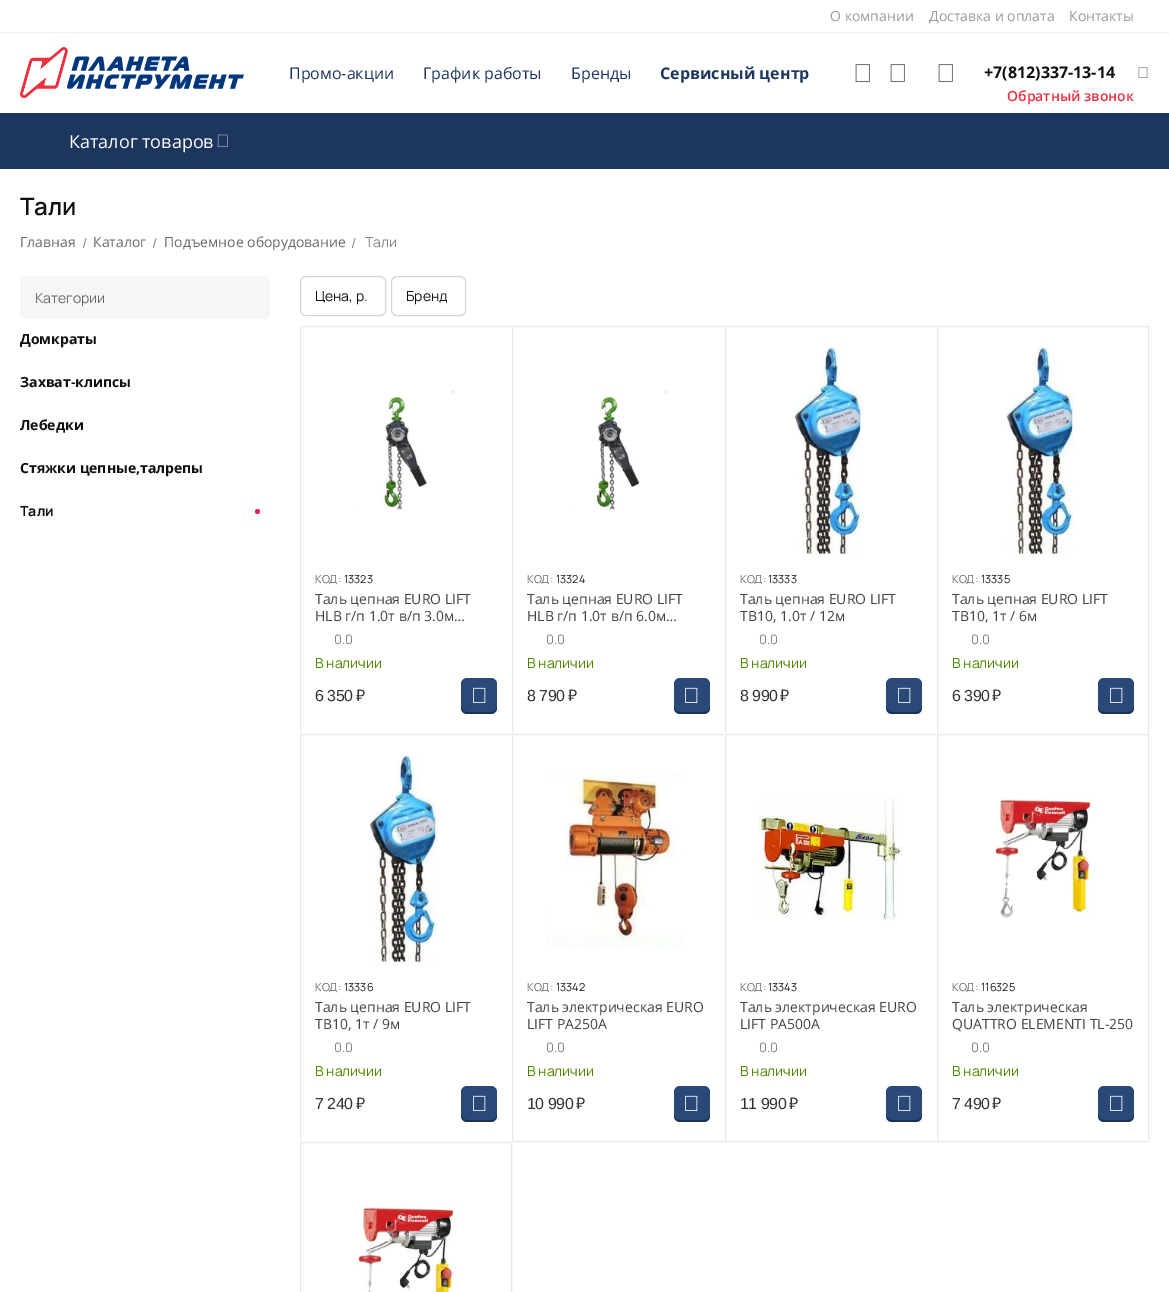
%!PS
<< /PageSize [1169 1292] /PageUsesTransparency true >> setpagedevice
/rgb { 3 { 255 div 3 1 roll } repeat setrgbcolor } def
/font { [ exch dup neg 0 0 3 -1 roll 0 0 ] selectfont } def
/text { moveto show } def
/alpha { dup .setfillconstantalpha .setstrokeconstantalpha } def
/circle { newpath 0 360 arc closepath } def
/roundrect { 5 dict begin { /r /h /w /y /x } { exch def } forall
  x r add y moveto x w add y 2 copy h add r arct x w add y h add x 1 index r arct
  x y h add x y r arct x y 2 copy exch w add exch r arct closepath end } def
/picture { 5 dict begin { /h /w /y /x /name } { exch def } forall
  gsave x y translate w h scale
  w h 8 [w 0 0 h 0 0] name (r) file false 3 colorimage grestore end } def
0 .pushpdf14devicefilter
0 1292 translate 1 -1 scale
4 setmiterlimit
255 255 255 rgb
0 0 1169 1292 rectfill
238 238 238 rgb
0 32 1169 1 rectfill
(img_01.rgb) 20 47 224 52 picture
(img_02.rgb) 855 64 15 18 picture
(img_02.rgb) 890 64 15 18 picture
(img_02.rgb) 938 64 15 18 picture
(img_03.rgb) 1138 67 10 11 picture
29 54 93 rgb
0 113 1169 56 rectfill
(img_04.rgb) 217 134 11 13 picture
246 246 246 rgb
20 276 250 43 6 roundrect fill
237 30 99 rgb
257.5 511.5 2.5 circle fill
213 213 213 rgb
300.5 276.5 85 39 5.5 roundrect stroke
391.5 276.5 74 39 5.5 roundrect stroke
233 233 233 rgb
300.5 326.5 211 407 rectstroke
(img_05.rgb) 358 390 97 121 picture
42 72 120 rgb
461 678 36 36 6 roundrect fill
0.3 alpha
0 0 0 rgb
461 706 moveto 0 7.5 3 8 10 8 rcurveto 16 0 rlineto 7 0 10 -0.5 10 -8 rcurveto 0 3 -3 6 -6 6 rcurveto -24 0 rlineto -3 0 -6 -3 -6 -6 rcurveto closepath fill
1 alpha
(img_06.rgb) 473 687 13 16 picture
255 255 255 rgb
511.5 325.5 214 409 rectstroke
233 233 233 rgb
512.5 326.5 212 407 rectstroke
(img_07.rgb) 570 390 98 121 picture
42 72 120 rgb
674 678 36 36 6 roundrect fill
0.3 alpha
0 0 0 rgb
674 706 moveto 0 7.5 3 8 10 8 rcurveto 16 0 rlineto 7 0 10 -0.5 10 -8 rcurveto 0 3 -3 6 -6 6 rcurveto -24 0 rlineto -3 0 -6 -3 -6 -6 rcurveto closepath fill
1 alpha
(img_06.rgb) 685 687 13 16 picture
255 255 255 rgb
724.5 325.5 213 409 rectstroke
233 233 233 rgb
725.5 326.5 211 407 rectstroke
(img_08.rgb) 794 346 70 211 picture
42 72 120 rgb
886 678 36 36 6 roundrect fill
0.3 alpha
0 0 0 rgb
886 706 moveto 0 7.5 3 8 10 8 rcurveto 16 0 rlineto 7 0 10 -0.5 10 -8 rcurveto 0 3 -3 6 -6 6 rcurveto -24 0 rlineto -3 0 -6 -3 -6 -6 rcurveto closepath fill
1 alpha
(img_06.rgb) 898 687 13 16 picture
255 255 255 rgb
936.5 325.5 213 409 rectstroke
233 233 233 rgb
937.5 326.5 211 407 rectstroke
(img_08.rgb) 1006 346 70 211 picture
42 72 120 rgb
1098 678 36 36 6 roundrect fill
0.3 alpha
0 0 0 rgb
1098 706 moveto 0 7.5 3 8 10 8 rcurveto 16 0 rlineto 7 0 10 -0.5 10 -8 rcurveto 0 3 -3 6 -6 6 rcurveto -24 0 rlineto -3 0 -6 -3 -6 -6 rcurveto closepath fill
1 alpha
(img_06.rgb) 1110 687 13 16 picture
255 255 255 rgb
299.5 733.5 213 409 rectstroke
233 233 233 rgb
300.5 734.5 211 407 rectstroke
(img_08.rgb) 369 754 70 211 picture
42 72 120 rgb
461 1086 36 36 6 roundrect fill
0.3 alpha
0 0 0 rgb
461 1114 moveto 0 7.5 3 8 10 8 rcurveto 16 0 rlineto 7 0 10 -0.5 10 -8 rcurveto 0 3 -3 6 -6 6 rcurveto -24 0 rlineto -3 0 -6 -3 -6 -6 rcurveto closepath fill
1 alpha
(img_06.rgb) 473 1095 13 16 picture
255 255 255 rgb
511.5 733.5 214 409 rectstroke
233 233 233 rgb
512.5 734.5 212 407 rectstroke
(img_09.rgb) 546 769 140 180 picture
42 72 120 rgb
674 1086 36 36 6 roundrect fill
0.3 alpha
0 0 0 rgb
674 1114 moveto 0 7.5 3 8 10 8 rcurveto 16 0 rlineto 7 0 10 -0.5 10 -8 rcurveto 0 3 -3 6 -6 6 rcurveto -24 0 rlineto -3 0 -6 -3 -6 -6 rcurveto closepath fill
1 alpha
(img_06.rgb) 685 1095 13 16 picture
255 255 255 rgb
724.5 733.5 213 409 rectstroke
233 233 233 rgb
725.5 734.5 211 407 rectstroke
(img_10.rgb) 758 797 146 125 picture
42 72 120 rgb
886 1086 36 36 6 roundrect fill
0.3 alpha
0 0 0 rgb
886 1114 moveto 0 7.5 3 8 10 8 rcurveto 16 0 rlineto 7 0 10 -0.5 10 -8 rcurveto 0 3 -3 6 -6 6 rcurveto -24 0 rlineto -3 0 -6 -3 -6 -6 rcurveto closepath fill
1 alpha
(img_06.rgb) 898 1095 13 16 picture
255 255 255 rgb
936.5 733.5 213 409 rectstroke
233 233 233 rgb
937.5 734.5 211 407 rectstroke
(img_11.rgb) 994 797 98 122 picture
42 72 120 rgb
1098 1086 36 36 6 roundrect fill
0.3 alpha
0 0 0 rgb
1098 1114 moveto 0 7.5 3 8 10 8 rcurveto 16 0 rlineto 7 0 10 -0.5 10 -8 rcurveto 0 3 -3 6 -6 6 rcurveto -24 0 rlineto -3 0 -6 -3 -6 -6 rcurveto closepath fill
1 alpha
(img_06.rgb) 1110 1095 13 16 picture
255 255 255 rgb
299.5 1141.5 213 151 rectstroke
233 233 233 rgb
300.5 1142.5 211 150 rectstroke
(img_12.rgb) 357 1205 98 87 picture
/OpenSans-Regular 14 font
153 153 153 rgb
(О компании) 830 21 text
(Доставка и оплата) 929 21 text
(Контакты) 1069 21 text
/OpenSans-Regular 16 font
29 54 93 rgb
(Промо-акции) 289 79 text
(График работы) 423 79 text
(Бренды) 571 79 text
/OpenSans-Bold 16 font
(Сервисный центр) 660 79 text
16 16 16 rgb
(+7\(812\)337-13-14) 984 78 text
/OpenSans-SemiBold 14 font
238 47 63 rgb
(Обратный звонок) 1007 101 text
/OpenSans-Regular 18 font
255 255 255 rgb
(Каталог товаров) 69 148 text
/Manrope-SemiBold 24 font
16 16 16 rgb
(Тали) 20 215 text
/OpenSans-Regular 14 font
105 105 105 rgb
(Главная) 20 247 text
/Manrope-Regular 14 font
131 131 131 rgb
(/) 82 248 text
/OpenSans-Regular 14 font
105 105 105 rgb
(Каталог) 93 247 text
/Manrope-Regular 14 font
131 131 131 rgb
(/) 152 248 text
/OpenSans-Regular 14 font
105 105 105 rgb
(Подъемное оборудование) 164 247 text
/Manrope-Regular 14 font
131 131 131 rgb
(/) 351 248 text
(Тали) 365 247 text
105 105 105 rgb
(Категории) 35 303 text
/OpenSans-Bold 14 font
16 16 16 rgb
(Домкраты) 20 344 text
(Захват-клипсы) 20 387 text
(Лебедки) 20 430 text
(Стяжки цепные,талрепы) 20 473 text
/Manrope-Bold 14 font
(Тали) 20 516 text
/Manrope-Regular 14 font
(Цена, р.) 315 301 text
(Бренд) 406 301 text
/Manrope-Regular 11 font
105 105 105 rgb
(КОД:) 315 583 text
16 16 16 rgb
(13323) 344 583 text
/OpenSans-Regular 14 font
67 67 67 rgb
(Таль цепная EURO LIFT) 315 604 text
(HLB г/п 1.0т в/п 3.0м…) 315 621 text
/Manrope-Regular 13 font
131 131 131 rgb
(0.0) 334 644 text
/Manrope-Regular 14 font
76 138 0 rgb
(В наличии) 315 668 text
/LiberationSans-Regular 16 font
51 51 51 rgb
315 701 moveto -0.5 0 (6 350) ashow
/NotoSans-Regular 16 font
356 701 moveto -0.5 0 (₽) ashow
/Manrope-Regular 11 font
105 105 105 rgb
(КОД:) 527 583 text
16 16 16 rgb
(13324) 556 583 text
/OpenSans-Regular 14 font
67 67 67 rgb
(Таль цепная EURO LIFT) 527 604 text
(HLB г/п 1.0т в/п 6.0м…) 527 621 text
/Manrope-Regular 13 font
131 131 131 rgb
(0.0) 546 644 text
/Manrope-Regular 14 font
76 138 0 rgb
(В наличии) 527 668 text
/LiberationSans-Regular 16 font
51 51 51 rgb
527 701 moveto -0.5 0 (8 790) ashow
/NotoSans-Regular 16 font
568 701 moveto -0.5 0 (₽) ashow
/Manrope-Regular 11 font
105 105 105 rgb
(КОД:) 740 583 text
16 16 16 rgb
(13333) 768 583 text
/OpenSans-Regular 14 font
67 67 67 rgb
(Таль цепная EURO LIFT) 740 604 text
(ТВ10, 1.0т / 12м) 740 621 text
/Manrope-Regular 13 font
131 131 131 rgb
(0.0) 759 644 text
/Manrope-Regular 14 font
76 138 0 rgb
(В наличии) 740 668 text
/LiberationSans-Regular 16 font
51 51 51 rgb
740 701 moveto -0.5 0 (8 990) ashow
/NotoSans-Regular 16 font
780 701 moveto -0.5 0 (₽) ashow
/Manrope-Regular 11 font
105 105 105 rgb
(КОД:) 952 583 text
16 16 16 rgb
(13335) 981 583 text
/OpenSans-Regular 14 font
67 67 67 rgb
(Таль цепная EURO LIFT) 952 604 text
(ТВ10, 1т / 6м) 952 621 text
/Manrope-Regular 13 font
131 131 131 rgb
(0.0) 971 644 text
/Manrope-Regular 14 font
76 138 0 rgb
(В наличии) 952 668 text
/LiberationSans-Regular 16 font
51 51 51 rgb
952 701 moveto -0.5 0 (6 390) ashow
/NotoSans-Regular 16 font
992 701 moveto -0.5 0 (₽) ashow
/Manrope-Regular 11 font
105 105 105 rgb
(КОД:) 315 991 text
16 16 16 rgb
(13336) 344 991 text
/OpenSans-Regular 14 font
67 67 67 rgb
(Таль цепная EURO LIFT) 315 1012 text
(ТВ10, 1т / 9м) 315 1029 text
/Manrope-Regular 13 font
131 131 131 rgb
(0.0) 334 1052 text
/Manrope-Regular 14 font
76 138 0 rgb
(В наличии) 315 1076 text
/LiberationSans-Regular 16 font
51 51 51 rgb
315 1109 moveto -0.5 0 (7 240) ashow
/NotoSans-Regular 16 font
356 1109 moveto -0.5 0 (₽) ashow
/Manrope-Regular 11 font
105 105 105 rgb
(КОД:) 527 991 text
16 16 16 rgb
(13342) 556 991 text
/OpenSans-Regular 14 font
67 67 67 rgb
(Таль электрическая EURO) 527 1012 text
(LIFT РА250А) 527 1029 text
/Manrope-Regular 13 font
131 131 131 rgb
(0.0) 546 1052 text
/Manrope-Regular 14 font
76 138 0 rgb
(В наличии) 527 1076 text
/LiberationSans-Regular 16 font
51 51 51 rgb
527 1109 moveto -0.5 0 (10 990) ashow
/NotoSans-Regular 16 font
576 1109 moveto -0.5 0 (₽) ashow
/Manrope-Regular 11 font
105 105 105 rgb
(КОД:) 740 991 text
16 16 16 rgb
(13343) 768 991 text
/OpenSans-Regular 14 font
67 67 67 rgb
(Таль электрическая EURO) 740 1012 text
(LIFT РА500А) 740 1029 text
/Manrope-Regular 13 font
131 131 131 rgb
(0.0) 759 1052 text
/Manrope-Regular 14 font
76 138 0 rgb
(В наличии) 740 1076 text
/LiberationSans-Regular 16 font
51 51 51 rgb
740 1109 moveto -0.5 0 (11 990) ashow
/NotoSans-Regular 16 font
789 1109 moveto -0.5 0 (₽) ashow
/Manrope-Regular 11 font
105 105 105 rgb
(КОД:) 952 991 text
16 16 16 rgb
(116325) 981 991 text
/OpenSans-Regular 14 font
67 67 67 rgb
(Таль электрическая) 952 1012 text
(QUATTRO ELEMENTI TL-250) 952 1029 text
/Manrope-Regular 13 font
131 131 131 rgb
(0.0) 971 1052 text
/Manrope-Regular 14 font
76 138 0 rgb
(В наличии) 952 1076 text
/LiberationSans-Regular 16 font
51 51 51 rgb
952 1109 moveto -0.5 0 (7 490) ashow
/NotoSans-Regular 16 font
992 1109 moveto -0.5 0 (₽) ashow
.poppdf14devicefilter showpage
